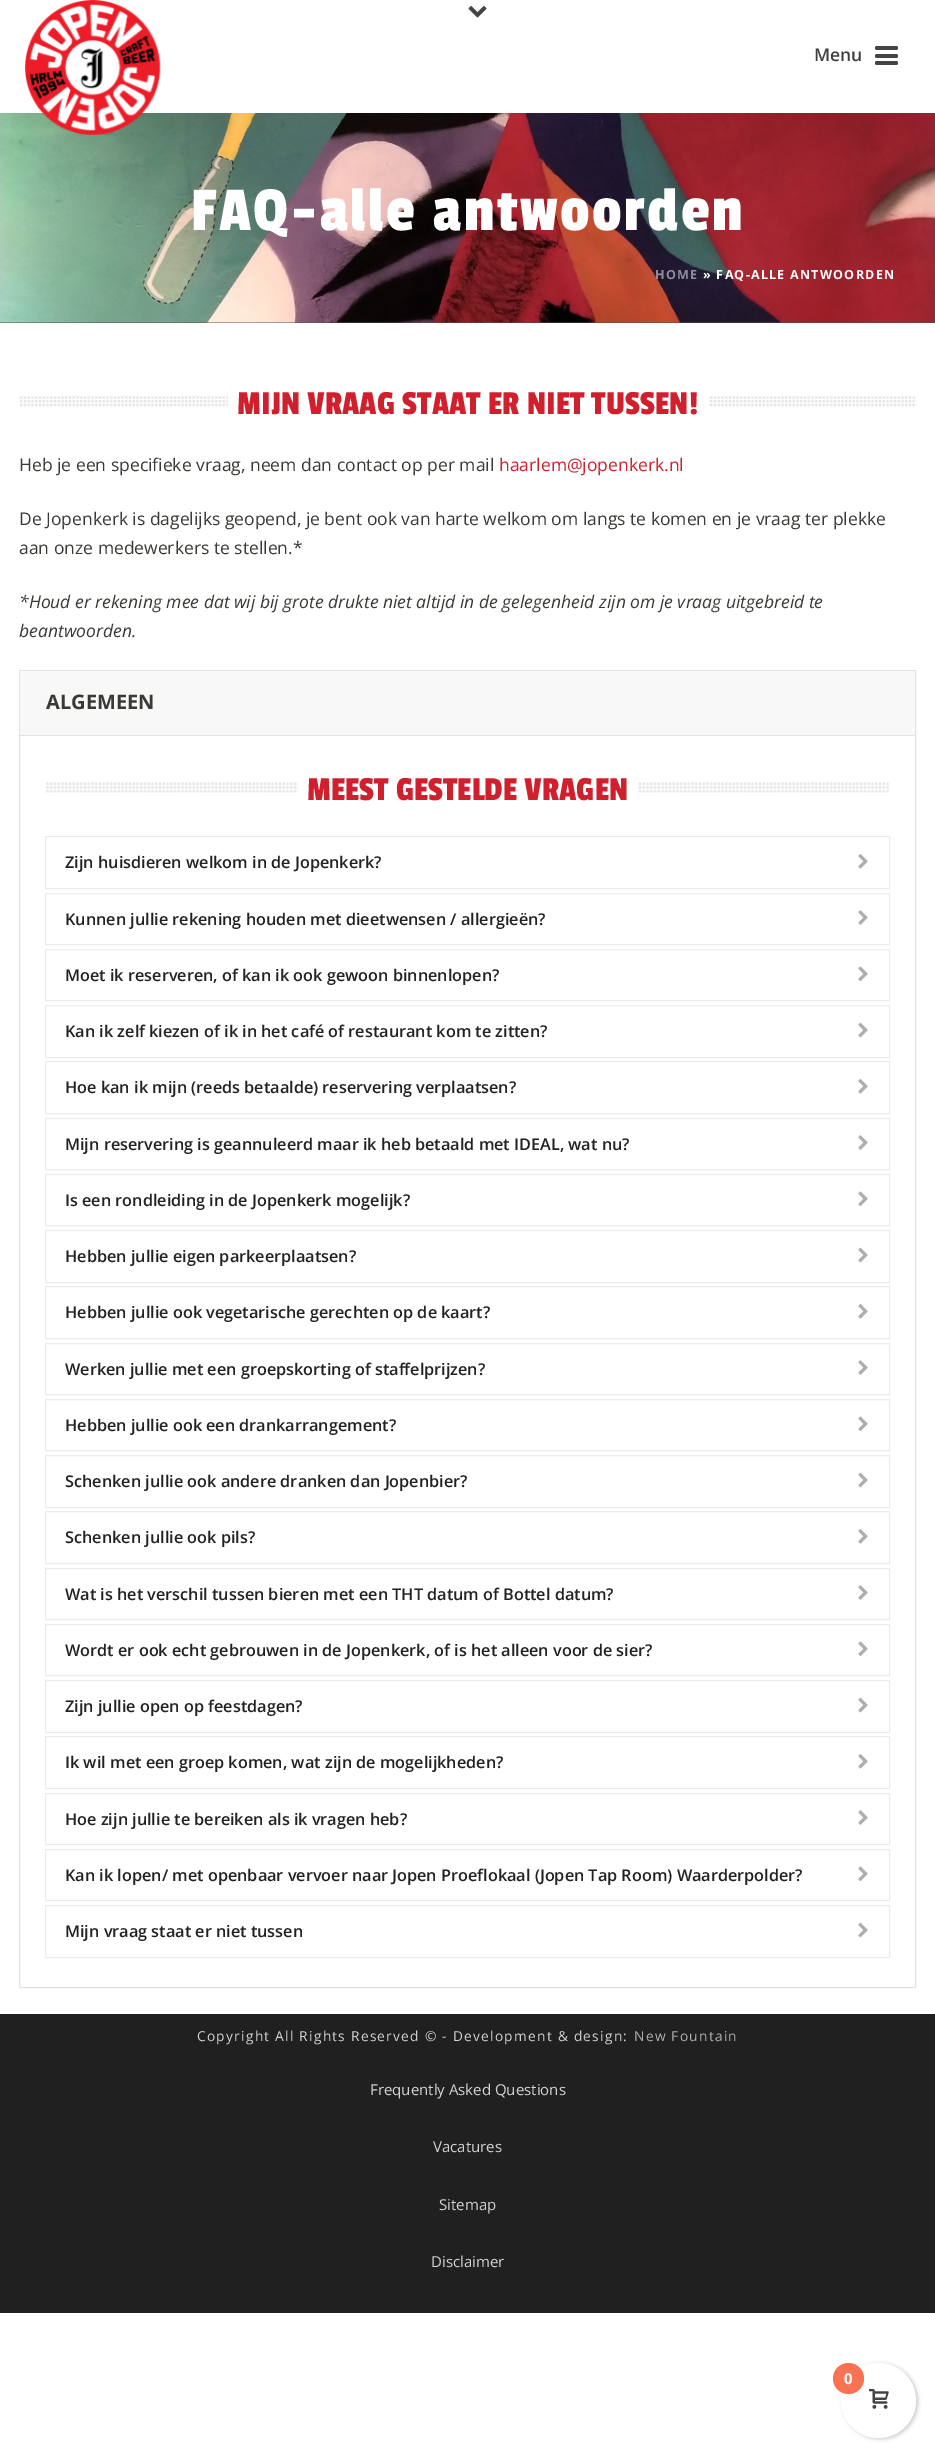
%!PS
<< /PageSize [935 2456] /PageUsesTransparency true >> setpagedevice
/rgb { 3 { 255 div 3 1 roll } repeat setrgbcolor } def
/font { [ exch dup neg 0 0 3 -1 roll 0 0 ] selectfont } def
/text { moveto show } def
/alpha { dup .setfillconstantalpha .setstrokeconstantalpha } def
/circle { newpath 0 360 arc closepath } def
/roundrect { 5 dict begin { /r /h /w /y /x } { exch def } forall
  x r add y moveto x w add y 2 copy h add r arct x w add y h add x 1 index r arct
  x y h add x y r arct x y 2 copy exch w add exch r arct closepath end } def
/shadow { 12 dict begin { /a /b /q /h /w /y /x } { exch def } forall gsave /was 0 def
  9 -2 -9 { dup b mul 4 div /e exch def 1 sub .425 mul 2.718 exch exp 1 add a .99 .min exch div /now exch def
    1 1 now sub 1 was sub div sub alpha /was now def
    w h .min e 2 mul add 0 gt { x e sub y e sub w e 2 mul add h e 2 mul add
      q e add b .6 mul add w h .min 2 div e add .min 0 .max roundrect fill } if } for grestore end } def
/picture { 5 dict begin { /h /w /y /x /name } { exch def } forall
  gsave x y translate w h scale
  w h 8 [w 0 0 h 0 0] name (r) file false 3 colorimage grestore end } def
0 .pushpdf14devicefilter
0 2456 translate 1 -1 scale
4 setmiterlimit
255 255 255 rgb
0 0 935 2456 rectfill
84 84 84 rgb
0 322 935 1 rectfill
(img_01.rgb) 0 113 935 210 picture
(img_02.rgb) 468 6 19 12 picture
(img_03.rgb) 25 0 136 135 picture
68 68 68 rgb
875 46 23 4 2 roundrect fill
875 54 23 4 2 roundrect fill
875 61 23 4 2 roundrect fill
(img_04.rgb) 18 396 899 11 picture
255 255 255 rgb
228 396 481 11 rectfill
227 227 227 rgb
19.5 670.5 896 1317 rectstroke
248 248 248 rgb
20 671 895 64 rectfill
227 227 227 rgb
20 735 895 1 rectfill
(img_05.rgb) 46 782 843 11 picture
255 255 255 rgb
298 782 340 11 rectfill
236 236 236 rgb
45.5 836.5 844 52 rectstroke
(img_06.rgb) 858 854 10 15 picture
45.5 893.5 844 51 rectstroke
(img_07.rgb) 858 910 10 15 picture
45.5 949.5 844 51 rectstroke
(img_08.rgb) 858 966 10 15 picture
45.5 1005.5 844 52 rectstroke
(img_09.rgb) 858 1022 10 16 picture
45.5 1061.5 844 52 rectstroke
(img_06.rgb) 858 1079 10 15 picture
45.5 1118.5 844 51 rectstroke
(img_07.rgb) 858 1135 10 15 picture
45.5 1174.5 844 51 rectstroke
(img_08.rgb) 858 1191 10 15 picture
45.5 1230.5 844 52 rectstroke
(img_09.rgb) 858 1247 10 16 picture
45.5 1286.5 844 52 rectstroke
(img_06.rgb) 858 1304 10 15 picture
45.5 1343.5 844 51 rectstroke
(img_07.rgb) 858 1360 10 15 picture
45.5 1399.5 844 51 rectstroke
(img_08.rgb) 858 1416 10 15 picture
45.5 1455.5 844 52 rectstroke
(img_09.rgb) 858 1472 10 16 picture
45.5 1511.5 844 52 rectstroke
(img_06.rgb) 858 1529 10 15 picture
45.5 1568.5 844 51 rectstroke
(img_07.rgb) 858 1585 10 15 picture
45.5 1624.5 844 51 rectstroke
(img_08.rgb) 858 1641 10 15 picture
45.5 1680.5 844 52 rectstroke
(img_09.rgb) 858 1697 10 16 picture
45.5 1736.5 844 52 rectstroke
(img_06.rgb) 858 1754 10 15 picture
45.5 1793.5 844 51 rectstroke
(img_07.rgb) 858 1810 10 15 picture
45.5 1849.5 844 51 rectstroke
(img_08.rgb) 858 1866 10 15 picture
45.5 1905.5 844 52 rectstroke
(img_09.rgb) 858 1922 10 16 picture
32 32 32 rgb
0 2014 935 299 rectfill
0 0 0 rgb
843 2364 75 75 37.5 2 0.2 shadow
255 255 255 rgb
878.5 2400.5 37.5 circle fill
249 115 82 rgb
848.5 2378.5 15.5 circle fill
(img_10.rgb) 869 2389 20 20 picture
/OpenSans-SemiBold 17.5 font
64 64 65 rgb
(Menu) 814 61 text
/PassionOne-Regular 65 font
255 255 255 rgb
191 230 moveto 2.5 0 (FAQ-alle antwoorden) ashow
/OpenSans-Bold 12.5 font
144 140 151 rgb
655 279 moveto 1.25 0 (HOME) ashow
255 255 255 rgb
703 279 moveto 1.25 0 (» FAQ-ALLE ANTWOORDEN) ashow
/PassionOne-Regular 35 font
208 32 46 rgb
(MIJN VRAAG STAAT ER NIET TUSSEN!) 237 414 text
/OpenSans-Regular 17.5 font
56 58 53 rgb
(Heb je een specifieke vraag, neem dan contact op per mail) 19 471 text
208 32 46 rgb
(haarlem@jopenkerk.nl) 499 471 text
56 58 53 rgb
(De Jopenkerk is dagelijks geopend, je bent ook van harte welkom om langs te komen en je vraag ter plekke) 19 525 text
(aan onze medewerkers te stellen.*) 19 554 text
/OpenSans-Italic 17.5 font
(*Houd er rekening mee dat wij bij grote drukte niet altijd in de gelegenheid zijn om je vraag uitgebreid te) 19 608 text
(beantwoorden.) 19 637 text
/OpenSans-Bold 20 font
(ALGEMEEN) 46 709 text
/PassionOne-Regular 35 font
208 32 46 rgb
(MEEST GESTELDE VRAGEN) 307 800 text
/OpenSans-SemiBold 16.25 font
34 34 34 rgb
(Zijn huisdieren welkom in de Jopenkerk?) 65 868 text
(Kunnen jullie rekening houden met dieetwensen / allergieën?) 65 925 text
(Moet ik reserveren, of kan ik ook gewoon binnenlopen?) 65 981 text
(Kan ik zelf kiezen of ik in het café of restaurant kom te zitten?) 65 1037 text
(Hoe kan ik mijn \(reeds betaalde\) reservering verplaatsen?) 65 1093 text
(Mijn reservering is geannuleerd maar ik heb betaald met IDEAL, wat nu?) 65 1150 text
(Is een rondleiding in de Jopenkerk mogelijk?) 65 1206 text
(Hebben jullie eigen parkeerplaatsen?) 65 1262 text
(Hebben jullie ook vegetarische gerechten op de kaart?) 65 1318 text
(Werken jullie met een groepskorting of staffelprijzen?) 65 1375 text
(Hebben jullie ook een drankarrangement?) 65 1431 text
(Schenken jullie ook andere dranken dan Jopenbier?) 65 1487 text
(Schenken jullie ook pils?) 65 1543 text
(Wat is het verschil tussen bieren met een THT datum of Bottel datum?) 65 1600 text
(Wordt er ook echt gebrouwen in de Jopenkerk, of is het alleen voor de sier?) 65 1656 text
(Zijn jullie open op feestdagen?) 65 1712 text
(Ik wil met een groep komen, wat zijn de mogelijkheden?) 65 1768 text
(Hoe zijn jullie te bereiken als ik vragen heb?) 65 1825 text
(Kan ik lopen/ met openbaar vervoer naar Jopen Proeflokaal \(Jopen Tap Room\) Waarderpolder?) 65 1881 text
(Mijn vraag staat er niet tussen) 65 1937 text
/OpenSans-Regular 13.75 font
210 210 210 rgb
197 2041 moveto 1.25 0 (Copyright All Rights Reserved © - Development & design:) ashow
175 175 175 rgb
634 2041 moveto 1.25 0 (New Fountain) ashow
/OpenSans-Regular 15 font
210 210 210 rgb
(Frequently Asked Questions) 370 2095 text
(Vacatures) 433 2152 text
(Sitemap) 439 2210 text
(Disclaimer) 431 2267 text
/OpenSans-Bold 15 font
255 255 255 rgb
(0) 844 2384 text
.poppdf14devicefilter showpage
